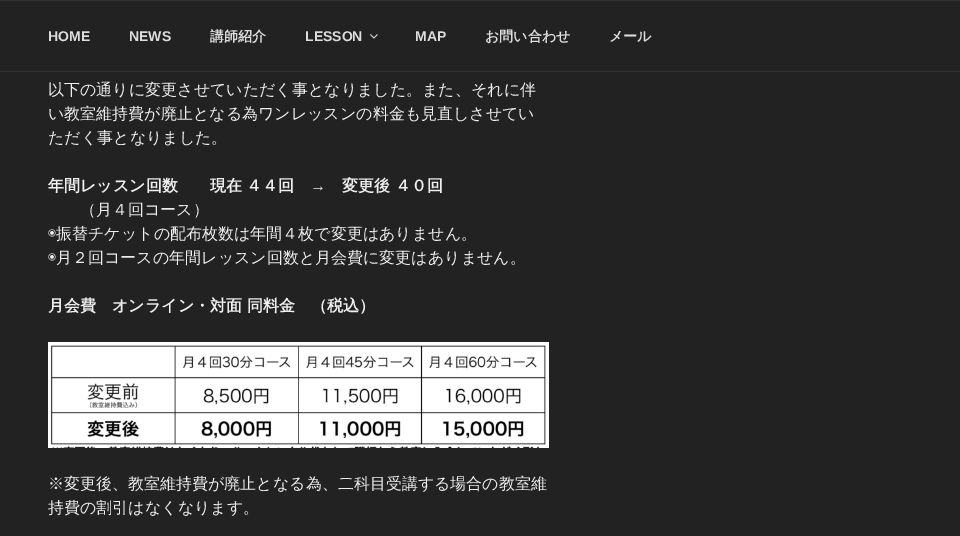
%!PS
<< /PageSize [960 536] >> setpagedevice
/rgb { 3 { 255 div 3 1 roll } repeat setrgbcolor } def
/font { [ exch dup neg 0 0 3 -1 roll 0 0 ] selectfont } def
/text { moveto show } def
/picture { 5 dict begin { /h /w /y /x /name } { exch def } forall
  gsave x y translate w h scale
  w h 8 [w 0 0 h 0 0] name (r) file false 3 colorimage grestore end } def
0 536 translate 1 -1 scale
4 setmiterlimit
34 34 34 rgb
0 0 960 536 rectfill
51 51 51 rgb
0 0 960 1 rectfill
0 71 960 1 rectfill
(img_01.rgb) 370 34 8 5 picture
(img_02.rgb) 48 342 501 106 picture
/LiberationSans-Bold 14 font
221 221 221 rgb
(HOME) 48 41 text
(NEWS) 129 41 text
/WenQuanYiZenHei-Bold 14 font
(講師紹介) 210 41 text
/LiberationSans-Bold 14 font
(LESSON) 305 41 text
(MAP) 415 41 text
/WenQuanYiZenHei-Bold 14 font
(お問い合わせ) 485 41 text
(メール) 609 41 text
/WenQuanYiZenHei-Medium 16 font
238 238 238 rgb
(以下の通りに変更させていただく事となりました。また、それに伴) 48 95 text
(い教室維持費が廃止となる為ワンレッスンの料金も見直しさせてい) 48 119 text
(ただく事となりました。) 48 143 text
/WenQuanYiZenHei-Bold 16 font
(年間レッスン回数　　現在 ４４回) 48 191 text
/LiberationSans-Bold 16 font
(→) 310 191 text
/WenQuanYiZenHei-Bold 16 font
(変更後 ４０回) 342 191 text
/WenQuanYiZenHei-Medium 16 font
(（月４回コース）) 80 215 text
/IPAPGothic-Regular 16 font
(◉) 48 239 text
/WenQuanYiZenHei-Medium 16 font
(振替チケットの配布枚数は年間４枚で変更はありません。) 56 239 text
/IPAPGothic-Regular 16 font
(◉) 48 263 text
/WenQuanYiZenHei-Medium 16 font
(月２回コースの年間レッスン回数と月会費に変更はありません。) 56 263 text
/WenQuanYiZenHei-Bold 16 font
(月会費　オンライン・対面 同料金　（税込）) 48 311 text
/WenQuanYiZenHei-Medium 16 font
(※変更後、教室維持費が廃止となる為、二科目受講する場合の教室維) 48 489 text
(持費の割引はなくなります。) 48 513 text
showpage
